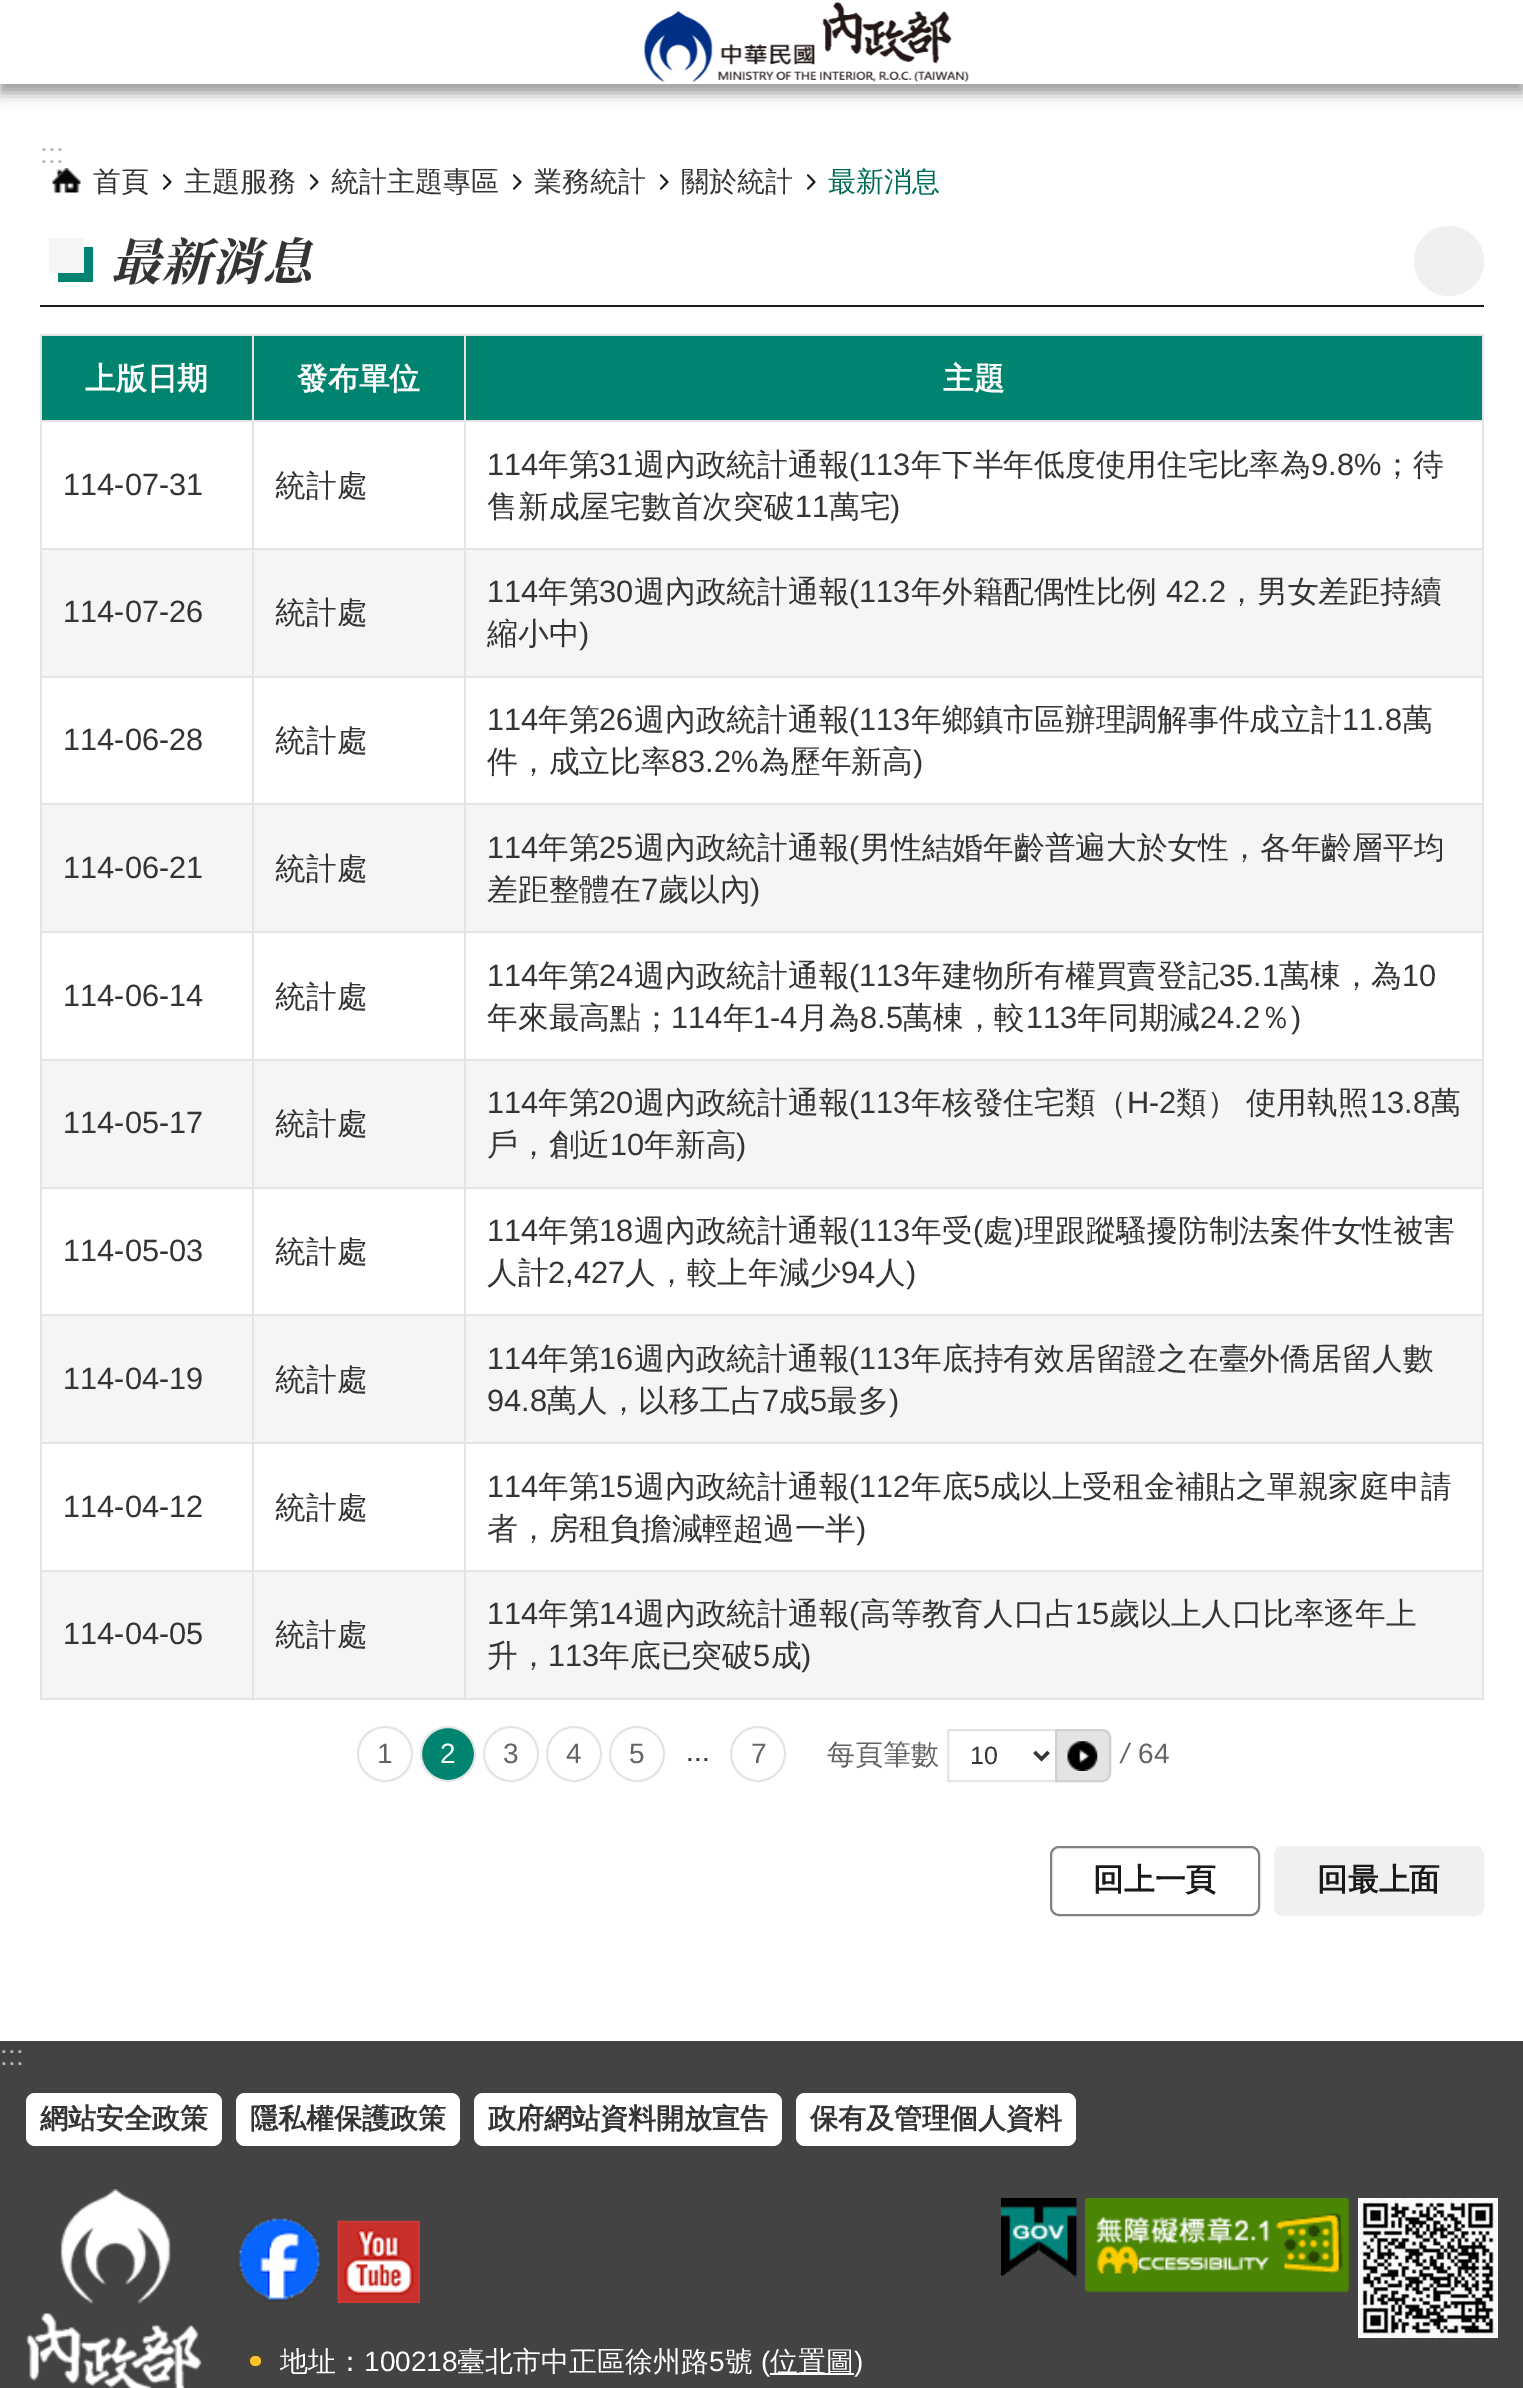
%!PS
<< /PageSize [1523 2388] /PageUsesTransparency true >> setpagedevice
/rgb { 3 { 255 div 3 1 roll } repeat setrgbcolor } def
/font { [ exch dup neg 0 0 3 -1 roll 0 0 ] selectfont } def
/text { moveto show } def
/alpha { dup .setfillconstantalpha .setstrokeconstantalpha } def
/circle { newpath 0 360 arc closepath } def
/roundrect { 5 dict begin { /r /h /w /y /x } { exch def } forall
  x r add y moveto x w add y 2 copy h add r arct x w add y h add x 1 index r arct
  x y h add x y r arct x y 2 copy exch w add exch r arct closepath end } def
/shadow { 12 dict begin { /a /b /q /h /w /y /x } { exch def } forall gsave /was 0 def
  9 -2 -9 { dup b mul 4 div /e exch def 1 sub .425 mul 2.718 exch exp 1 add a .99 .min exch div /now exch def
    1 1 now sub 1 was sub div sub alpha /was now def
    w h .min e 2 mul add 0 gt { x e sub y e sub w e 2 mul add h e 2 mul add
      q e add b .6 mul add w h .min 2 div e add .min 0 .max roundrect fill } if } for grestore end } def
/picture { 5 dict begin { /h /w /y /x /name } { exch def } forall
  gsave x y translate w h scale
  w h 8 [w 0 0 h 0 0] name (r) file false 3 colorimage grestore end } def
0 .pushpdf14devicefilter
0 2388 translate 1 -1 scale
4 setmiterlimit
255 255 255 rgb
0 0 1523 2388 rectfill
0 0 0 rgb
0 9 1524 84 0 7 0.4 shadow
255 255 255 rgb
0 0 1523 84 rectfill
(img_01.rgb) 644 2 325 80 picture
(img_02.rgb) 52 168 29 25 picture
26 26 26 rgb
163 175.5 moveto 1 -1.5 rlineto 7.5 7.5 rlineto -1.5 1.5 rlineto closepath fill
170 181 moveto 1.5 1.5 rlineto -7.5 7.5 rlineto -1 -1.5 rlineto closepath fill
310 175.5 moveto 1 -1.5 rlineto 7.5 7.5 rlineto -1.5 1.5 rlineto closepath fill
317 181 moveto 1.5 1.5 rlineto -7.5 7.5 rlineto -1 -1.5 rlineto closepath fill
513 175.5 moveto 1 -1.5 rlineto 7.5 7.5 rlineto -1.5 1.5 rlineto closepath fill
520 181 moveto 1.5 1.5 rlineto -7.5 7.5 rlineto -1 -1.5 rlineto closepath fill
660 175.5 moveto 1 -1.5 rlineto 7.5 7.5 rlineto -1.5 1.5 rlineto closepath fill
667 181 moveto 1.5 1.5 rlineto -7.5 7.5 rlineto -1 -1.5 rlineto closepath fill
807 175.5 moveto 1 -1.5 rlineto 7.5 7.5 rlineto -1.5 1.5 rlineto closepath fill
814 181 moveto 1.5 1.5 rlineto -7.5 7.5 rlineto -1 -1.5 rlineto closepath fill
40 305 1444 2 rectfill
0 132 112 rgb
58 247 35 35 rectfill
245 245 245 rgb
49 238 35 35 rectfill
240 240 240 rgb
1449 261 35 circle fill
0 132 112 rgb
42 336 210 84 rectfill
228 228 228 rgb
464 334 1020 2 rectfill
464 420 1020 2 rectfill
464 548 1020 2 rectfill
245 245 245 rgb
42 550 1440 126 rectfill
228 228 228 rgb
464 676 1020 2 rectfill
464 803 1020 2 rectfill
245 245 245 rgb
42 805 1440 126 rectfill
228 228 228 rgb
464 931 1020 2 rectfill
464 1059 1020 2 rectfill
245 245 245 rgb
42 1061 1440 126 rectfill
228 228 228 rgb
464 1187 1020 2 rectfill
464 1314 1020 2 rectfill
245 245 245 rgb
42 1316 1440 126 rectfill
228 228 228 rgb
464 1442 1020 2 rectfill
464 1570 1020 2 rectfill
245 245 245 rgb
42 1572 1440 126 rectfill
228 228 228 rgb
1482 1570 2 129 rectfill
464 1698 1020 2 rectfill
464 1570 2 129 rectfill
252 1570 214 2 rectfill
464 1442 2 130 rectfill
252 1442 214 2 rectfill
464 1314 2 130 rectfill
252 1314 214 2 rectfill
464 1187 2 129 rectfill
252 1187 214 2 rectfill
464 1059 2 129 rectfill
252 1059 214 2 rectfill
464 931 2 130 rectfill
252 931 214 2 rectfill
464 803 2 130 rectfill
252 803 214 2 rectfill
464 676 2 129 rectfill
252 676 214 2 rectfill
464 548 2 129 rectfill
252 548 214 2 rectfill
464 420 2 130 rectfill
252 420 214 2 rectfill
464 334 2 88 rectfill
252 334 214 2 rectfill
252 1698 214 2 rectfill
252 1570 2 129 rectfill
40 1570 214 2 rectfill
252 1442 2 130 rectfill
40 1442 214 2 rectfill
252 1314 2 130 rectfill
40 1314 214 2 rectfill
252 1187 2 129 rectfill
40 1187 214 2 rectfill
252 1059 2 129 rectfill
40 1059 214 2 rectfill
252 931 2 130 rectfill
40 931 214 2 rectfill
252 803 2 130 rectfill
40 803 214 2 rectfill
252 676 2 129 rectfill
40 676 214 2 rectfill
252 548 2 129 rectfill
40 548 214 2 rectfill
252 420 2 130 rectfill
40 420 214 2 rectfill
252 334 2 88 rectfill
40 334 214 2 rectfill
40 1698 214 2 rectfill
40 1570 2 129 rectfill
40 1442 2 130 rectfill
40 1314 2 130 rectfill
40 1187 2 129 rectfill
40 1059 2 129 rectfill
40 931 2 130 rectfill
40 803 2 130 rectfill
40 676 2 129 rectfill
40 548 2 129 rectfill
40 420 2 130 rectfill
40 334 2 88 rectfill
0 132 112 rgb
254 336 210 84 rectfill
466 336 1016 84 rectfill
228 228 228 rgb
1482 1442 2 130 rectfill
1482 1314 2 130 rectfill
1482 1187 2 129 rectfill
1482 1059 2 129 rectfill
1482 931 2 130 rectfill
1482 803 2 130 rectfill
1482 676 2 129 rectfill
1482 548 2 129 rectfill
1482 420 2 130 rectfill
1482 334 2 88 rectfill
2 setlinewidth
385 1754 27 circle stroke
0 132 112 rgb
448 1754 27 circle gsave fill grestore
228 228 228 rgb
stroke
511 1754 27 circle stroke
574 1754 27 circle stroke
637 1754 27 circle stroke
758 1754 27 circle stroke
948 1730 108 51 rectstroke
52 52 52 rgb
3.5 setlinewidth
1034.5 1752 moveto 7 7 rlineto 7 -7 rlineto stroke
228 228 228 rgb
1055 1729 moveto 47 0 rlineto 5 0 9 4 9 9 rcurveto 0 35 rlineto 0 5 -4 9 -9 9 rcurveto -47 0 rlineto closepath fill
(img_03.rgb) 1067 1741 31 30 picture
208 208 208 rgb
2 setlinewidth
1056 1730 moveto 46 0 rlineto 4.5 0 8 3.5 8 8 rcurveto 0 35 rlineto 0 4.5 -3.5 8 -8 8 rcurveto -46 0 rlineto closepath stroke
129 129 129 rgb
1051 1847 208 68 8 roundrect stroke
240 240 240 rgb
1275 1847 208 68 8 roundrect gsave fill grestore
stroke
67 67 67 rgb
0 2041 1523 347 rectfill
255 255 255 rgb
26 2093 196 53 9 roundrect fill
236 2093 224 53 9 roundrect fill
474 2093 308 53 9 roundrect fill
796 2093 280 53 9 roundrect fill
(img_04.rgb) 1001 2198 76 80 picture
(img_05.rgb) 1001 2198 76 80 picture
(img_06.rgb) 1085 2198 265 95 picture
(img_07.rgb) 1085 2198 265 95 picture
(img_08.rgb) 1358 2198 140 140 picture
(img_09.rgb) 26 2189 176 199 picture
(img_10.rgb) 236 2216 86 87 picture
(img_11.rgb) 337 2220 83 83 picture
255 194 39 rgb
250 2356 11 10 5 roundrect fill
255 255 255 rgb
770 2373 84 2 rectfill
/LiberationSans-Regular 28 font
182 182 182 rgb
(:::) 40 163 text
/WenQuanYiZenHei-Medium 28 font
52 52 52 rgb
(首頁) 93 191 text
(主題服務) 184 191 text
(統計主題專區) 331 191 text
(業務統計) 534 191 text
(關於統計) 681 191 text
0 106 90 rgb
(最新消息) 828 191 text
/NotoSerifTC-ExtraLightItalic 50.5 font
52 52 52 rgb
(最新消息) 110 280 text
/WenQuanYiZenHei-Bold 30.75 font
255 255 255 rgb
(上版日期) 85 389 text
(發布單位) 297 389 text
(主題) 943 389 text
/LiberationSans-Regular 30.75 font
52 52 52 rgb
(114-07-31) 63 495 text
/WenQuanYiZenHei-Medium 30.75 font
(統計處) 275 496 text
/LiberationSans-Regular 30.75 font
(114) 487 475 text
/WenQuanYiZenHei-Medium 30.75 font
(年第) 538 475 text
/LiberationSans-Regular 30.75 font
(31) 599 475 text
/WenQuanYiZenHei-Medium 30.75 font
(週內政統計通報) 634 475 text
/LiberationSans-Regular 30.75 font
(\(113) 849 475 text
/WenQuanYiZenHei-Medium 30.75 font
(年下半年低度使用住宅比率為) 911 475 text
/LiberationSans-Regular 30.75 font
(9.8%) 1311 475 text
/WenQuanYiZenHei-Medium 30.75 font
(；待) 1382 475 text
(售新成屋宅數首次突破) 487 517 text
/LiberationSans-Regular 30.75 font
(11) 795 517 text
/WenQuanYiZenHei-Medium 30.75 font
(萬宅) 829 517 text
/LiberationSans-Regular 30.75 font
(\)) 890 517 text
(114-07-26) 63 622 text
/WenQuanYiZenHei-Medium 30.75 font
(統計處) 275 623 text
/LiberationSans-Regular 30.75 font
(114) 487 602 text
/WenQuanYiZenHei-Medium 30.75 font
(年第) 538 602 text
/LiberationSans-Regular 30.75 font
(30) 599 602 text
/WenQuanYiZenHei-Medium 30.75 font
(週內政統計通報) 634 602 text
/LiberationSans-Regular 30.75 font
(\(113) 849 602 text
/WenQuanYiZenHei-Medium 30.75 font
(年外籍配偶性比例) 911 602 text
/LiberationSans-Regular 30.75 font
(42.2) 1166 602 text
/WenQuanYiZenHei-Medium 30.75 font
(，男女差距持續) 1226 602 text
(縮小中) 487 644 text
/LiberationSans-Regular 30.75 font
(\)) 579 644 text
(114-06-28) 63 750 text
/WenQuanYiZenHei-Medium 30.75 font
(統計處) 275 751 text
/LiberationSans-Regular 30.75 font
(114) 487 730 text
/WenQuanYiZenHei-Medium 30.75 font
(年第) 538 730 text
/LiberationSans-Regular 30.75 font
(26) 599 730 text
/WenQuanYiZenHei-Medium 30.75 font
(週內政統計通報) 634 730 text
/LiberationSans-Regular 30.75 font
(\(113) 849 730 text
/WenQuanYiZenHei-Medium 30.75 font
(年鄉鎮市區辦理調解事件成立計) 911 730 text
/LiberationSans-Regular 30.75 font
(11.8) 1342 730 text
/WenQuanYiZenHei-Medium 30.75 font
(萬) 1402 730 text
(件，成立比率) 487 772 text
/LiberationSans-Regular 30.75 font
(83.2%) 671 772 text
/WenQuanYiZenHei-Medium 30.75 font
(為歷年新高) 759 772 text
/LiberationSans-Regular 30.75 font
(\)) 913 772 text
(114-06-21) 63 878 text
/WenQuanYiZenHei-Medium 30.75 font
(統計處) 275 879 text
/LiberationSans-Regular 30.75 font
(114) 487 858 text
/WenQuanYiZenHei-Medium 30.75 font
(年第) 538 858 text
/LiberationSans-Regular 30.75 font
(25) 599 858 text
/WenQuanYiZenHei-Medium 30.75 font
(週內政統計通報) 634 858 text
/LiberationSans-Regular 30.75 font
(\() 849 858 text
/WenQuanYiZenHei-Medium 30.75 font
(男性結婚年齡普遍大於女性，各年齡層平均) 860 858 text
(差距整體在) 487 900 text
/LiberationSans-Regular 30.75 font
(7) 641 900 text
/WenQuanYiZenHei-Medium 30.75 font
(歲以內) 658 900 text
/LiberationSans-Regular 30.75 font
(\)) 750 900 text
(114-06-14) 63 1006 text
/WenQuanYiZenHei-Medium 30.75 font
(統計處) 275 1007 text
/LiberationSans-Regular 30.75 font
(114) 487 986 text
/WenQuanYiZenHei-Medium 30.75 font
(年第) 538 986 text
/LiberationSans-Regular 30.75 font
(24) 599 986 text
/WenQuanYiZenHei-Medium 30.75 font
(週內政統計通報) 634 986 text
/LiberationSans-Regular 30.75 font
(\(113) 849 986 text
/WenQuanYiZenHei-Medium 30.75 font
(年建物所有權買賣登記) 911 986 text
/LiberationSans-Regular 30.75 font
(35.1) 1219 986 text
/WenQuanYiZenHei-Medium 30.75 font
(萬棟，為) 1279 986 text
/LiberationSans-Regular 30.75 font
(10) 1402 986 text
/WenQuanYiZenHei-Medium 30.75 font
(年來最高點；) 487 1028 text
/LiberationSans-Regular 30.75 font
(114) 671 1028 text
/WenQuanYiZenHei-Medium 30.75 font
(年) 723 1028 text
/LiberationSans-Regular 30.75 font
(1-4) 753 1028 text
/WenQuanYiZenHei-Medium 30.75 font
(月為) 798 1028 text
/LiberationSans-Regular 30.75 font
(8.5) 860 1028 text
/WenQuanYiZenHei-Medium 30.75 font
(萬棟，較) 902 1028 text
/LiberationSans-Regular 30.75 font
(113) 1026 1028 text
/WenQuanYiZenHei-Medium 30.75 font
(年同期減) 1077 1028 text
/LiberationSans-Regular 30.75 font
(24.2) 1200 1028 text
/WenQuanYiZenHei-Medium 30.75 font
(％) 1260 1028 text
/LiberationSans-Regular 30.75 font
(\)) 1291 1028 text
(114-05-17) 63 1133 text
/WenQuanYiZenHei-Medium 30.75 font
(統計處) 275 1134 text
/LiberationSans-Regular 30.75 font
(114) 487 1113 text
/WenQuanYiZenHei-Medium 30.75 font
(年第) 538 1113 text
/LiberationSans-Regular 30.75 font
(20) 599 1113 text
/WenQuanYiZenHei-Medium 30.75 font
(週內政統計通報) 634 1113 text
/LiberationSans-Regular 30.75 font
(\(113) 849 1113 text
/WenQuanYiZenHei-Medium 30.75 font
(年核發住宅類（) 911 1113 text
/LiberationSans-Regular 30.75 font
(H-2) 1127 1113 text
/WenQuanYiZenHei-Medium 30.75 font
1176 1113 moveto -1 0 32 (類） 使用執照) widthshow
/LiberationSans-Regular 30.75 font
(13.8) 1370 1113 text
/WenQuanYiZenHei-Medium 30.75 font
(萬) 1430 1113 text
(戶，創近) 487 1155 text
/LiberationSans-Regular 30.75 font
(10) 610 1155 text
/WenQuanYiZenHei-Medium 30.75 font
(年新高) 644 1155 text
/LiberationSans-Regular 30.75 font
(\)) 736 1155 text
(114-05-03) 63 1261 text
/WenQuanYiZenHei-Medium 30.75 font
(統計處) 275 1262 text
/LiberationSans-Regular 30.75 font
(114) 487 1241 text
/WenQuanYiZenHei-Medium 30.75 font
(年第) 538 1241 text
/LiberationSans-Regular 30.75 font
(18) 599 1241 text
/WenQuanYiZenHei-Medium 30.75 font
(週內政統計通報) 634 1241 text
/LiberationSans-Regular 30.75 font
(\(113) 849 1241 text
/WenQuanYiZenHei-Medium 30.75 font
(年受) 911 1241 text
/LiberationSans-Regular 30.75 font
(\() 973 1241 text
/WenQuanYiZenHei-Medium 30.75 font
(處) 983 1241 text
/LiberationSans-Regular 30.75 font
(\)) 1014 1241 text
/WenQuanYiZenHei-Medium 30.75 font
(理跟蹤騷擾防制法案件女性被害) 1024 1241 text
(人計) 487 1283 text
/LiberationSans-Regular 30.75 font
(2,427) 548 1283 text
/WenQuanYiZenHei-Medium 30.75 font
(人，較上年減少) 625 1283 text
/LiberationSans-Regular 30.75 font
(94) 841 1283 text
/WenQuanYiZenHei-Medium 30.75 font
(人) 875 1283 text
/LiberationSans-Regular 30.75 font
(\)) 906 1283 text
(114-04-19) 63 1389 text
/WenQuanYiZenHei-Medium 30.75 font
(統計處) 275 1390 text
/LiberationSans-Regular 30.75 font
(114) 487 1369 text
/WenQuanYiZenHei-Medium 30.75 font
(年第) 538 1369 text
/LiberationSans-Regular 30.75 font
(16) 599 1369 text
/WenQuanYiZenHei-Medium 30.75 font
(週內政統計通報) 634 1369 text
/LiberationSans-Regular 30.75 font
(\(113) 849 1369 text
/WenQuanYiZenHei-Medium 30.75 font
(年底持有效居留證之在臺外僑居留人數) 911 1369 text
/LiberationSans-Regular 30.75 font
(94.8) 487 1411 text
/WenQuanYiZenHei-Medium 30.75 font
(萬人，以移工占) 546 1411 text
/LiberationSans-Regular 30.75 font
(7) 762 1411 text
/WenQuanYiZenHei-Medium 30.75 font
(成) 779 1411 text
/LiberationSans-Regular 30.75 font
(5) 810 1411 text
/WenQuanYiZenHei-Medium 30.75 font
(最多) 827 1411 text
/LiberationSans-Regular 30.75 font
(\)) 889 1411 text
(114-04-12) 63 1517 text
/WenQuanYiZenHei-Medium 30.75 font
(統計處) 275 1518 text
/LiberationSans-Regular 30.75 font
(114) 487 1497 text
/WenQuanYiZenHei-Medium 30.75 font
(年第) 538 1497 text
/LiberationSans-Regular 30.75 font
(15) 599 1497 text
/WenQuanYiZenHei-Medium 30.75 font
(週內政統計通報) 634 1497 text
/LiberationSans-Regular 30.75 font
(\(112) 849 1497 text
/WenQuanYiZenHei-Medium 30.75 font
(年底) 911 1497 text
/LiberationSans-Regular 30.75 font
(5) 973 1497 text
/WenQuanYiZenHei-Medium 30.75 font
(成以上受租金補貼之單親家庭申請) 990 1497 text
(者，房租負擔減輕超過一半) 487 1539 text
/LiberationSans-Regular 30.75 font
(\)) 856 1539 text
(114-04-05) 63 1644 text
/WenQuanYiZenHei-Medium 30.75 font
(統計處) 275 1645 text
/LiberationSans-Regular 30.75 font
(114) 487 1624 text
/WenQuanYiZenHei-Medium 30.75 font
(年第) 538 1624 text
/LiberationSans-Regular 30.75 font
(14) 599 1624 text
/WenQuanYiZenHei-Medium 30.75 font
(週內政統計通報) 634 1624 text
/LiberationSans-Regular 30.75 font
(\() 849 1624 text
/WenQuanYiZenHei-Medium 30.75 font
(高等教育人口占) 860 1624 text
/LiberationSans-Regular 30.75 font
(15) 1075 1624 text
/WenQuanYiZenHei-Medium 30.75 font
(歲以上人口比率逐年上) 1109 1624 text
(升，) 487 1666 text
/LiberationSans-Regular 30.75 font
(113) 548 1666 text
/WenQuanYiZenHei-Medium 30.75 font
(年底已突破) 599 1666 text
/LiberationSans-Regular 30.75 font
(5) 753 1666 text
/WenQuanYiZenHei-Medium 30.75 font
(成) 771 1666 text
/LiberationSans-Regular 30.75 font
(\)) 801 1666 text
/LiberationSans-Regular 28 font
100 100 100 rgb
(1) 377 1763 text
255 255 255 rgb
(2) 440 1763 text
100 100 100 rgb
(3) 503 1763 text
(4) 566 1763 text
(5) 629 1763 text
52 52 52 rgb
(...) 686 1761 text
100 100 100 rgb
(7) 751 1763 text
/WenQuanYiZenHei-Medium 28 font
(每頁筆數) 827 1764 text
/LiberationSans-Regular 25 font
52 52 52 rgb
(10) 970 1764 text
/LiberationSans-Italic 28 font
100 100 100 rgb
(/) 1121 1763 text
/LiberationSans-Regular 28 font
(64) 1138 1763 text
/WenQuanYiZenHei-Bold 30.75 font
26 26 26 rgb
(回上一頁) 1093 1890 text
(回最上面) 1317 1890 text
/LiberationSans-Regular 28 font
182 182 182 rgb
(:::) 0 2065 text
/WenQuanYiZenHei-Bold 28 font
52 52 52 rgb
(網站安全政策) 40 2128 text
(隱私權保護政策) 250 2128 text
(政府網站資料開放宣告) 488 2128 text
(保有及管理個人資料) 810 2128 text
/WenQuanYiZenHei-Medium 28 font
255 255 255 rgb
(地址：) 280 2371 text
/LiberationSans-Regular 28 font
(100218) 364 2371 text
/WenQuanYiZenHei-Medium 28 font
(臺北市中正區徐州路) 457 2371 text
/LiberationSans-Regular 28 font
(5) 709 2371 text
/WenQuanYiZenHei-Medium 28 font
(號) 725 2371 text
/LiberationSans-Regular 28 font
(\() 761 2371 text
/WenQuanYiZenHei-Medium 28 font
(位置圖) 770 2371 text
/LiberationSans-Regular 28 font
(\)) 854 2371 text
.poppdf14devicefilter showpage
